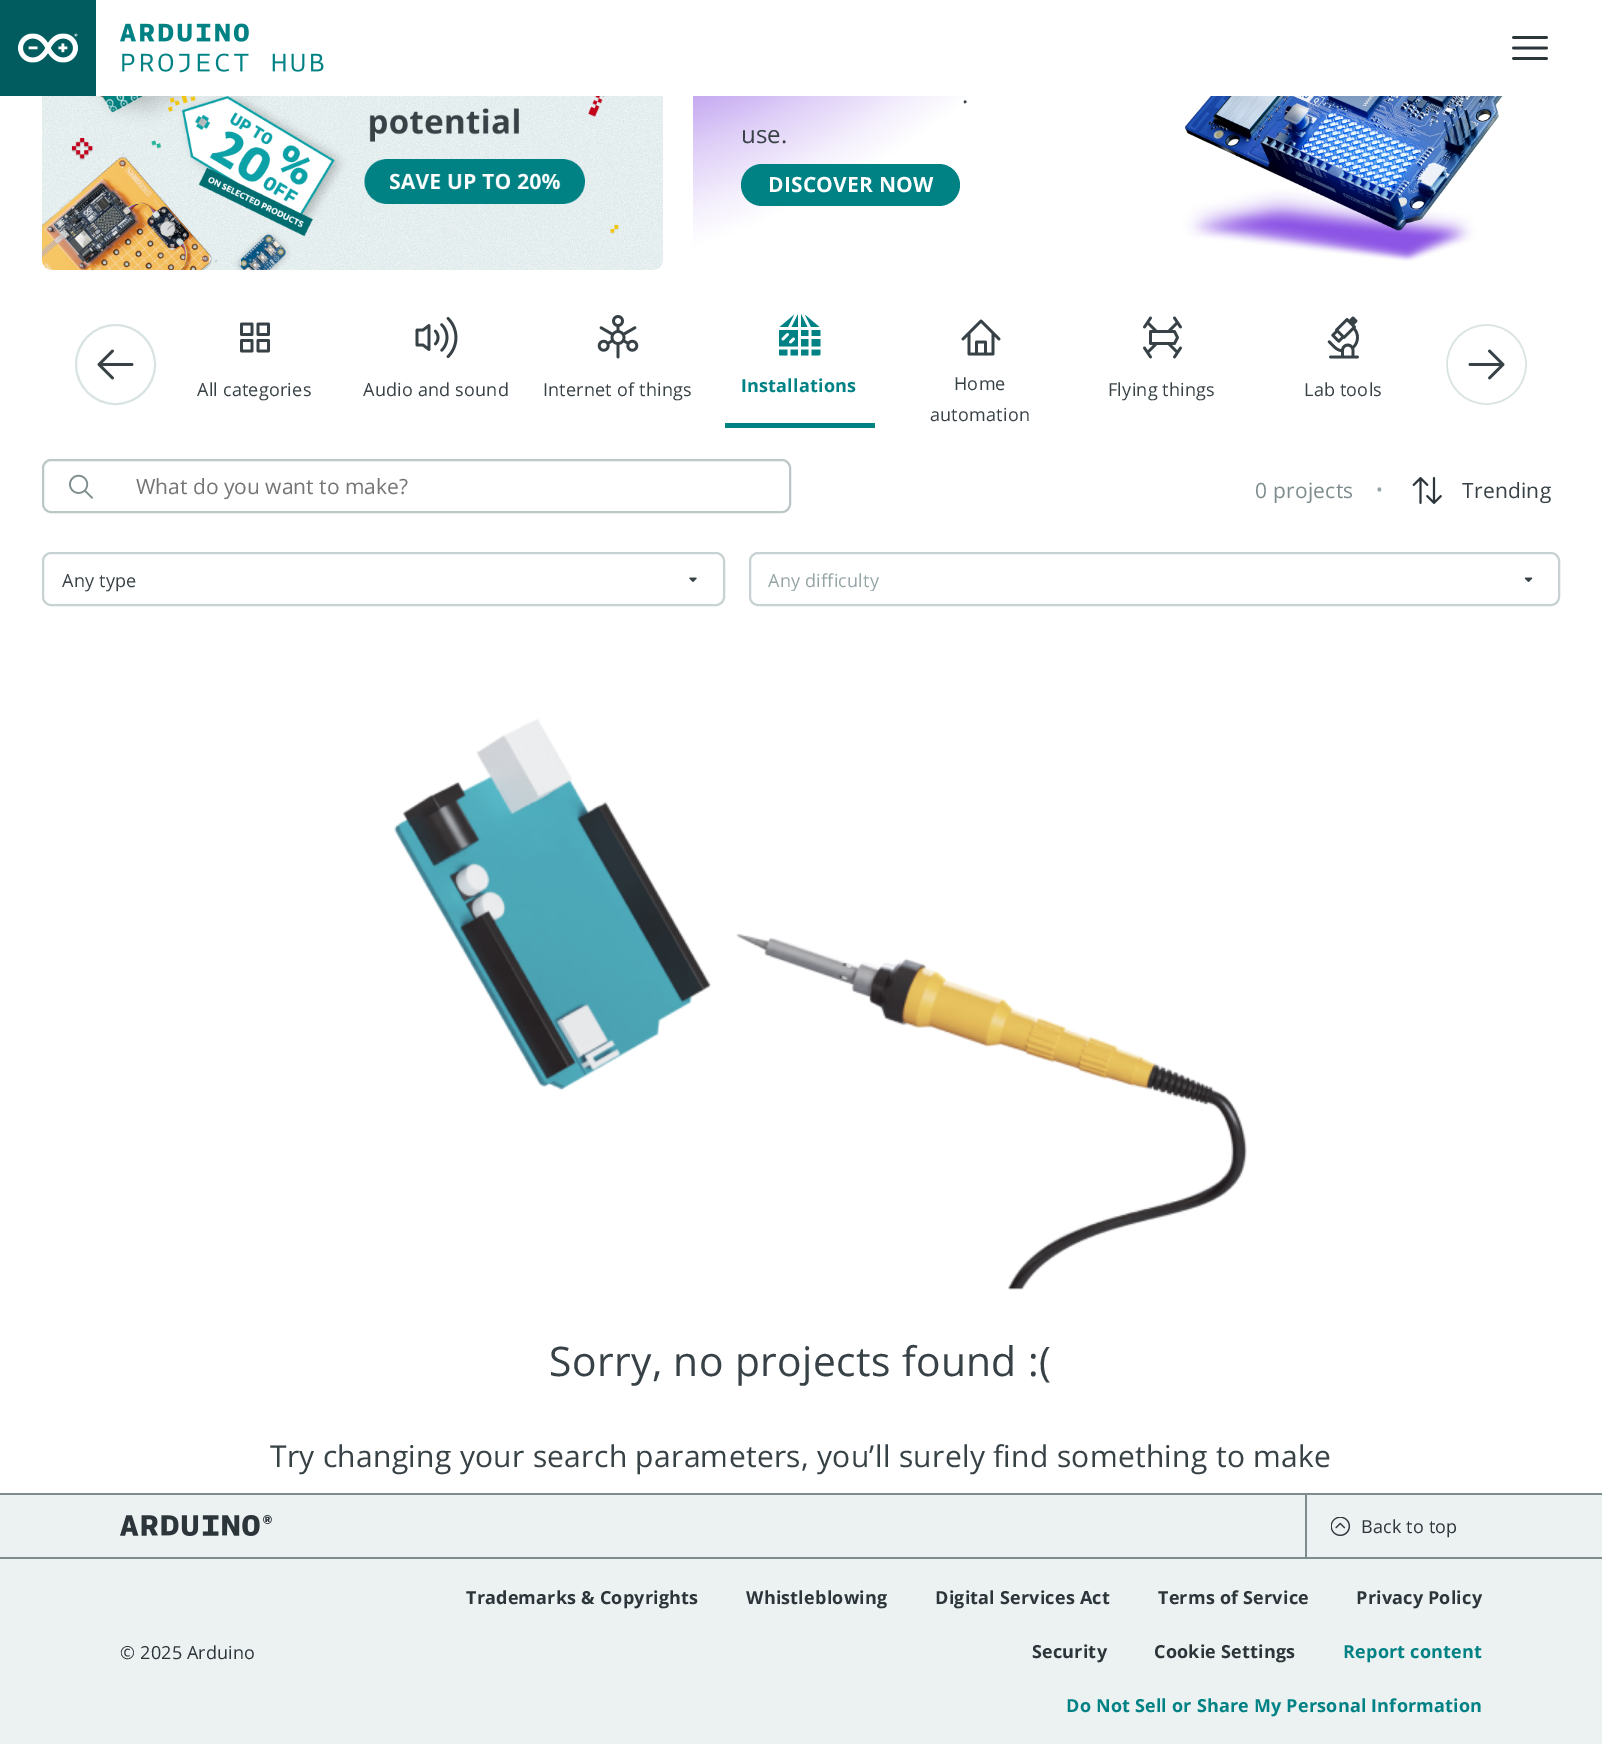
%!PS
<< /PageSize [1602 1744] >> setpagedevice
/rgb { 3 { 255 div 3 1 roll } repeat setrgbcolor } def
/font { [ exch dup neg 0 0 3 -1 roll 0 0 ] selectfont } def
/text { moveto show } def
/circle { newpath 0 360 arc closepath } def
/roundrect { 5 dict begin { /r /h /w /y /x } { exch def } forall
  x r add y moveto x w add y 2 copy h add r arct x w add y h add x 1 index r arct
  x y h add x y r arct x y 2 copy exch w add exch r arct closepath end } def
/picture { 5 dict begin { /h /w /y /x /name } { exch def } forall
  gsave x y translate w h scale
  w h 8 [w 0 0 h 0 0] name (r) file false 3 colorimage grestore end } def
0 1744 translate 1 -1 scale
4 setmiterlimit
255 255 255 rgb
0 0 1602 1744 rectfill
0 92 95 rgb
0 0 96 96 rectfill
(img_01.rgb) 18 33 60 30 picture
(img_02.rgb) 120 23 204 50 picture
(img_03.rgb) 1512 36 36 24 picture
(img_04.rgb) 42 96 621 174 picture
(img_05.rgb) 693 96 829 166 picture
0 129 132 rgb
741 164 219 42 21 roundrect fill
218 227 227 rgb
2 setlinewidth
115.5 364.5 39.5 circle stroke
(img_06.rgb) 97 349 37 31 picture
(img_07.rgb) 240 322 30 31 picture
(img_08.rgb) 415 317 43 42 picture
(img_09.rgb) 597 315 42 44 picture
0 129 132 rgb
725 423 150 5 rectfill
(img_10.rgb) 779 314 42 42 picture
(img_11.rgb) 961 319 40 37 picture
(img_12.rgb) 1143 316 39 43 picture
(img_13.rgb) 1327 316 32 43 picture
218 227 227 rgb
1.5 setlinewidth
1486.5 404 moveto -22 0 -39.5 -17.5 -39.5 -39.5 rcurveto 0 -22 17.5 -39.5 39.5 -39.5 rcurveto 22 0 39.5 17.5 39.5 39.5 rcurveto 0 22 -17.5 39.5 -39.5 39.5 rcurveto closepath stroke
(img_14.rgb) 1468 349 37 31 picture
189 199 199 rgb
2 setlinewidth
43 460 747 52 8 roundrect stroke
(img_15.rgb) 69 474 24 25 picture
(img_16.rgb) 1412 477 30 27 picture
201 210 210 rgb
43 553 681 52 8 roundrect stroke
(img_17.rgb) 689 577 8 5 picture
750 553 809 52 8 roundrect stroke
(img_18.rgb) 1524 577 9 5 picture
(img_19.rgb) 394 718 853 572 picture
236 241 241 rgb
0 1495 1602 249 rectfill
127 140 141 rgb
0 1493 1602 2 rectfill
(img_20.rgb) 120 1515 152 21 picture
1305 1494 2 63 rectfill
(img_21.rgb) 1331 1517 19 19 picture
0 1557 1602 2 rectfill
/OpenSans-Regular 24 font
55 65 70 rgb
(.) 962 103 text
(use.) 741 143 text
/OpenSans-Bold 21 font
255 255 255 rgb
768 192 moveto 0.25 0 (DISCOVER NOW) ashow
/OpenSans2-Regular 18 font
55 65 70 rgb
197 396 moveto 0.2 0 (All categories) ashow
363 396 moveto 0.2 0 (Audio and sound) ashow
543 396 moveto 0.2 0 (Internet of things) ashow
/OpenSans2-Bold 18 font
0 129 132 rgb
741 392 moveto 0.2 0 (Installations) ashow
/OpenSans2-Regular 18 font
55 65 70 rgb
954 390 moveto 0.2 0 (Home) ashow
930 421 moveto 0.2 0 (automation) ashow
1108 396 moveto 0.2 0 (Flying things) ashow
1304 396 moveto 0.2 0 (Lab tools) ashow
/OpenSans2-Regular 21 font
117 117 117 rgb
(What do you want to make?) 136 494 text
/OpenSans-Regular 21 font
127 140 141 rgb
1255 498 moveto 0.25 0 (0 projects) ashow
/OpenSans-Regular 18 font
149 165 166 rgb
1376 496 moveto 0.2 0 (•) ashow
/OpenSans-Regular 21 font
55 65 70 rgb
1462 498 moveto 0.25 0 (Trending) ashow
/OpenSans2-Regular 18 font
62 587 moveto 0.2 0 (Any type) ashow
gsave
768 567 737 24 rectclip
149 165 166 rgb
768 587 moveto 0.2 0 (Any difficulty) ashow
grestore
/OpenSans-Regular 40.75 font
549 1376 moveto 0.4 0 (Sorry, no projects found :\() ashow
/OpenSans-Regular 30 font
270 1467 moveto 0.3 0 (Try changing your search parameters, you’ll surely find something to make) ashow
/OpenSans2-Regular 18 font
44 53 58 rgb
1361 1533 moveto 0.2 0 (Back to top) ashow
120 1659 moveto 0.2 0 (© 2025 Arduino) ashow
/OpenSans-Bold 18 font
466 1604 moveto 0.2 0 (Trademarks & Copyrights) ashow
746 1604 moveto 0.2 0 (Whistleblowing) ashow
935 1604 moveto 0.2 0 (Digital Services Act) ashow
1158 1604 moveto 0.2 0 (Terms of Service) ashow
1356 1604 moveto 0.2 0 (Privacy Policy) ashow
1032 1658 moveto 0.2 0 (Security) ashow
1154 1658 moveto 0.2 0 (Cookie Settings) ashow
0 129 132 rgb
1343 1658 moveto 0.2 0 (Report content) ashow
1066 1712 moveto 0.2 0 (Do Not Sell or Share My Personal Information) ashow
showpage
